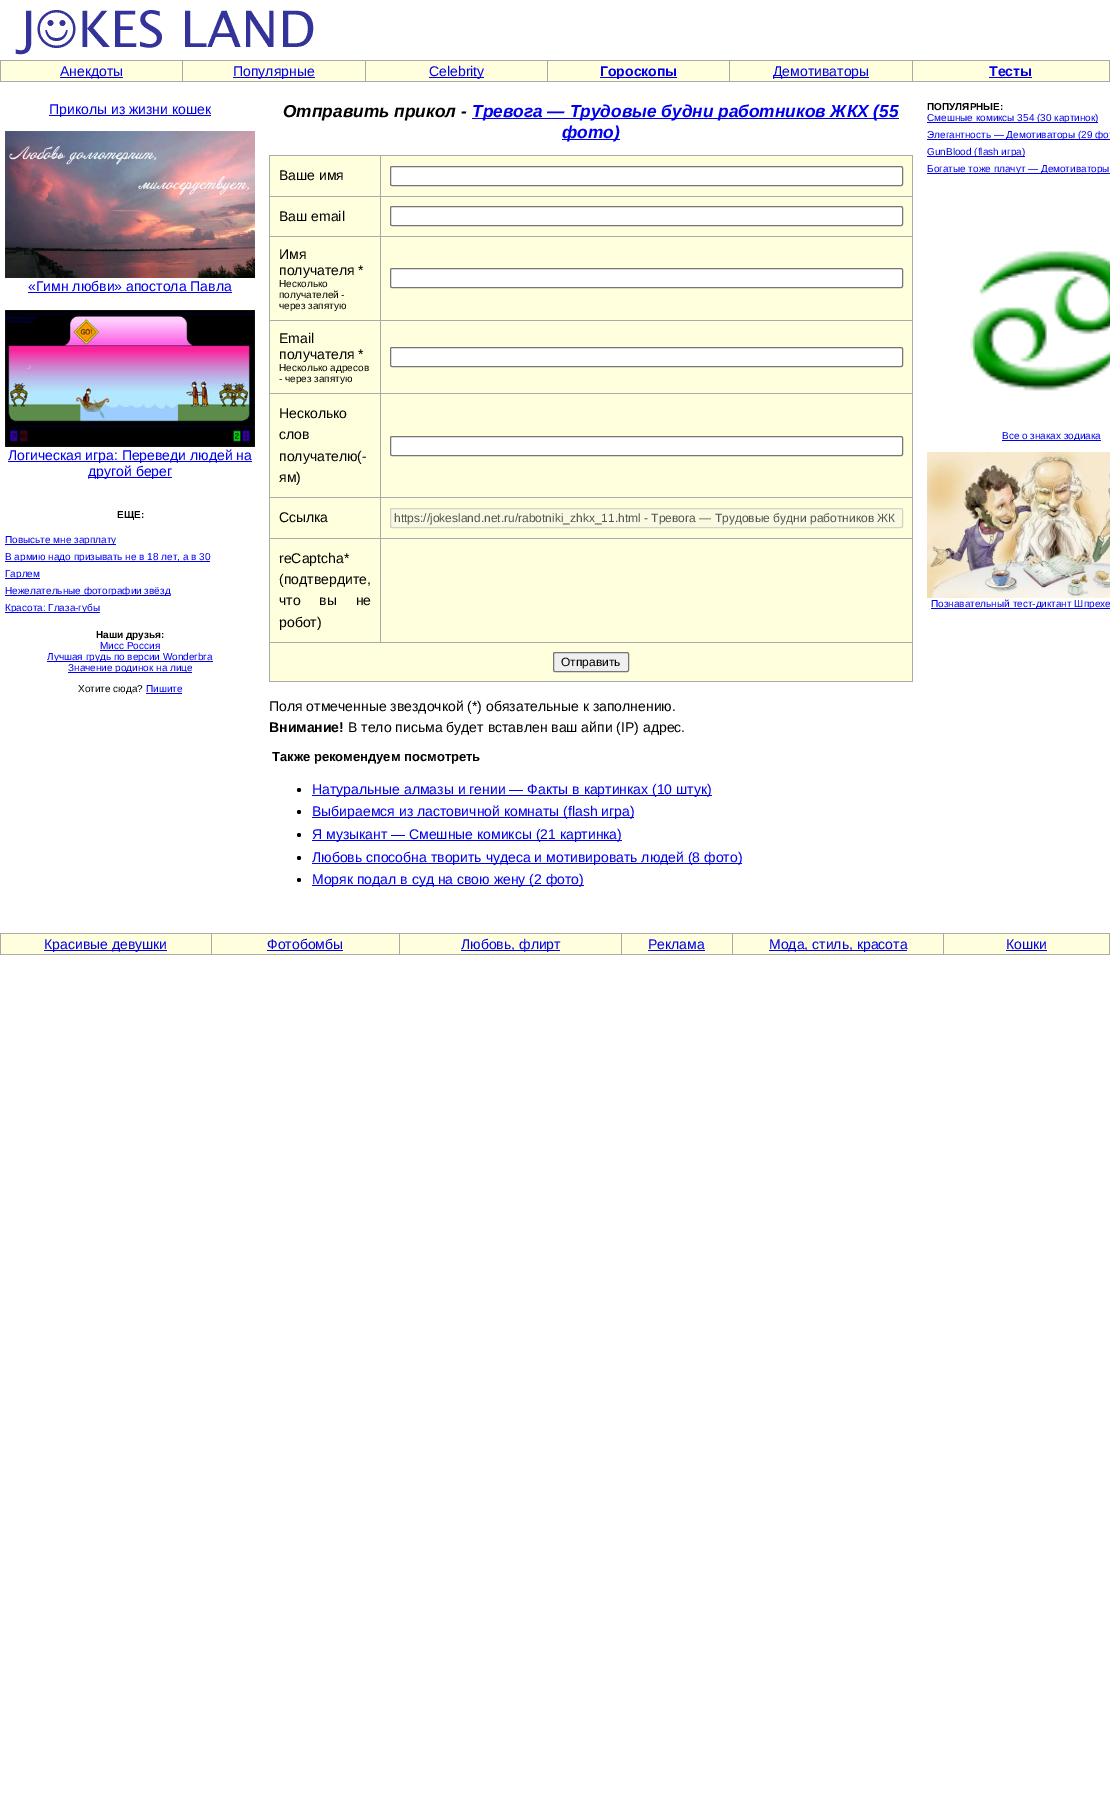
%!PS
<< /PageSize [1110 1818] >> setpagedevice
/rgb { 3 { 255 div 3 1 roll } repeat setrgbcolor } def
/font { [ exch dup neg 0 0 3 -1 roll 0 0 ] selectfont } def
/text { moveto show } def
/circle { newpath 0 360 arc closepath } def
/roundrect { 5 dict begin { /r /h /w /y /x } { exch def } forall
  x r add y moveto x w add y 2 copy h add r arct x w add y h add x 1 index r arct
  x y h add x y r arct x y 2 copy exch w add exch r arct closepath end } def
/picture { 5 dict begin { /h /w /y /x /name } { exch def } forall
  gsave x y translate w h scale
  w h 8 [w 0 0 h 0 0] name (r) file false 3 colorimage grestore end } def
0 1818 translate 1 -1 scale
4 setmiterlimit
255 255 255 rgb
0 0 1110 1818 rectfill
(img_01.rgb) 15 10 299 45 picture
170 170 170 rgb
0 60 1110 22 rectfill
255 255 221 rgb
1 61 181 20 rectfill
0 0 238 rgb
60 77 63 1 rectfill
255 255 221 rgb
183 61 182 20 rectfill
0 0 238 rgb
233 77 82 1 rectfill
255 255 221 rgb
366 61 181 20 rectfill
0 0 238 rgb
429 77 55 1 rectfill
255 255 221 rgb
548 61 181 20 rectfill
0 0 238 rgb
600 77 77 1 rectfill
255 255 221 rgb
730 61 182 20 rectfill
0 0 238 rgb
773 77 96 1 rectfill
255 255 221 rgb
913 61 196 20 rectfill
0 0 238 rgb
989 77 43 1 rectfill
49 115 162 1 rectfill
(img_02.rgb) 5 131 250 147 picture
28 292 204 1 rectfill
(img_03.rgb) 5 310 250 137 picture
8 461 244 1 rectfill
88 477 84 1 rectfill
5 544 111 1 rectfill
5 561 205 1 rectfill
5 578 35 1 rectfill
5 595 165 1 rectfill
5 612 95 1 rectfill
100 650 60 1 rectfill
47 661 166 1 rectfill
68 672 124 1 rectfill
146 693 36 1 rectfill
472 118 427 1 rectfill
562 139 58 1 rectfill
170 170 170 rgb
269 155 644 527 rectfill
255 255 221 rgb
270 156 110 40 rectfill
381 156 531 40 rectfill
255 255 255 rgb
390.5 166.5 512 19 1.5 roundrect gsave fill grestore
118 118 118 rgb
stroke
255 255 221 rgb
270 197 110 39 rectfill
381 197 531 39 rectfill
255 255 255 rgb
390.5 206.5 512 19 1.5 roundrect gsave fill grestore
118 118 118 rgb
stroke
255 255 221 rgb
270 237 110 83 rectfill
381 237 531 83 rectfill
255 255 255 rgb
390.5 268.5 512 19 1.5 roundrect gsave fill grestore
118 118 118 rgb
stroke
255 255 221 rgb
270 321 110 72 rectfill
381 321 531 72 rectfill
255 255 255 rgb
390.5 347.5 512 19 1.5 roundrect gsave fill grestore
118 118 118 rgb
stroke
255 255 221 rgb
270 394 110 103 rectfill
381 394 531 103 rectfill
255 255 255 rgb
390.5 436.5 512 19 1.5 roundrect gsave fill grestore
118 118 118 rgb
stroke
255 255 221 rgb
270 498 110 40 rectfill
381 498 531 40 rectfill
250 250 226 rgb
390.5 508.5 512 19 1.5 roundrect gsave fill grestore
210 210 194 rgb
stroke
255 255 221 rgb
270 539 110 103 rectfill
381 539 531 103 rectfill
270 643 642 38 rectfill
239 239 239 rgb
553.5 652.5 75 19 1.5 roundrect gsave fill grestore
118 118 118 rgb
stroke
0 0 0 rgb
299 790 2 circle fill
0 0 238 rgb
312 795 400 1 rectfill
0 0 0 rgb
299 812 2 circle fill
0 0 238 rgb
312 817 322 1 rectfill
0 0 0 rgb
299 835 2 circle fill
0 0 238 rgb
312 840 310 1 rectfill
0 0 0 rgb
299 858 2 circle fill
0 0 238 rgb
312 863 430 1 rectfill
0 0 0 rgb
299 880 2 circle fill
0 0 238 rgb
312 885 272 1 rectfill
927 122 171 1 rectfill
927 139 183 1 rectfill
927 156 98 1 rectfill
927 173 183 1 rectfill
(img_04.rgb) 970 251 140 140 picture
1002 440 99 1 rectfill
(img_05.rgb) 927 452 183 146 picture
931 608 179 1 rectfill
170 170 170 rgb
0 933 1110 22 rectfill
255 255 221 rgb
1 934 210 20 rectfill
0 0 238 rgb
44 950 123 1 rectfill
255 255 221 rgb
212 934 187 20 rectfill
0 0 238 rgb
267 950 76 1 rectfill
255 255 221 rgb
400 934 221 20 rectfill
0 0 238 rgb
461 950 99 1 rectfill
255 255 221 rgb
622 934 110 20 rectfill
0 0 238 rgb
648 950 57 1 rectfill
255 255 221 rgb
733 934 210 20 rectfill
0 0 238 rgb
769 950 138 1 rectfill
255 255 221 rgb
944 934 165 20 rectfill
0 0 238 rgb
1006 950 41 1 rectfill
/LiberationSans-Regular 14 font
(Анекдоты) 60 76 text
(Популярные) 233 76 text
(Celebrity) 429 76 text
/LiberationSans-Bold 14 font
(Гороскопы) 600 76 text
/LiberationSans-Regular 14 font
(Демотиваторы) 773 76 text
/LiberationSans-Bold 14 font
(Тесты) 989 76 text
/LiberationSans-Regular 14 font
(Приколы из жизни кошек) 49 114 text
(«Гимн любви» апостола Павла) 28 291 text
(Логическая игра: Переведи людей на) 8 460 text
(другой берег) 88 476 text
/LiberationSans-Bold 10 font
0 0 0 rgb
(ЕЩЕ:) 117 518 text
/LiberationSans-Regular 10 font
0 0 238 rgb
(Повысьте мне зарплату) 5 543 text
(В армию надо призывать не в 18 лет, а в 30) 5 560 text
(Гарлем) 5 577 text
(Нежелательные фотографии звёзд) 5 594 text
(Красота: Глаза-губы) 5 611 text
/LiberationSans-Bold 10 font
0 0 0 rgb
(Наши друзья:) 96 638 text
/LiberationSans-Regular 10 font
0 0 238 rgb
(Мисс Россия) 100 649 text
(Лучшая грудь по версии Wonderbra) 47 660 text
(Значение родинок на лице) 68 671 text
0 0 0 rgb
(Хотите сюда?) 78 692 text
0 0 238 rgb
(Пишите) 146 692 text
/LiberationSans-BoldItalic 17.3 font
0 0 0 rgb
(Отправить прикол -) 283 117 text
0 0 238 rgb
(Тревога — Трудовые будни работников ЖКХ \(55) 472 117 text
(фото\)) 562 138 text
/LiberationSans-Regular 14 font
0 0 0 rgb
(Ваше имя) 279 180 text
(Ваш email) 279 221 text
(Имя) 279 259 text
(получателя *) 279 275 text
/LiberationSans-Regular 10 font
(Несколько) 279 287 text
(получателей -) 279 298 text
(через запятую) 279 309 text
/LiberationSans-Regular 14 font
(Email) 279 343 text
(получателя *) 279 359 text
/LiberationSans-Regular 10 font
(Несколько адресов) 279 371 text
(- через запятую) 279 382 text
/LiberationSans-Regular 14 font
(Несколько) 279 418 text
(слов) 279 439 text
(получателю\(-) 279 461 text
(ям\)) 279 482 text
(Ссылка) 279 522 text
/LiberationSans-Regular 12 font
84 84 84 rgb
(https://jokesland.net.ru/rabotniki_zhkx_11.html - Тревога — Трудовые будни работников ЖК) 394 522 text
/LiberationSans-Regular 14 font
0 0 0 rgb
(reCaptcha*) 279 563 text
(\(подтвердите,) 279 584 text
279 605 moveto 15 0 32 (что вы не) widthshow
(робот\)) 279 627 text
/LiberationSans-Regular 12 font
(Отправить) 561 666 text
/LiberationSans-Regular 14 font
(Поля отмеченные звездочкой \(*\) обязательные к заполнению.) 269 711 text
/LiberationSans-Bold 14 font
(Внимание!) 269 732 text
/LiberationSans-Regular 14 font
(В тело письма будет вставлен ваш айпи \(IP\) адрес.) 348 732 text
/LiberationSans-Bold 13 font
(Также рекомендуем посмотреть) 272 761 text
/LiberationSans-Regular 14 font
0 0 238 rgb
(Натуральные алмазы и гении — Факты в картинках \(10 штук\)) 312 794 text
(Выбираемся из ластовичной комнаты \(flash игра\)) 312 816 text
(Я музыкант — Смешные комиксы \(21 картинка\)) 312 839 text
(Любовь способна творить чудеса и мотивировать людей \(8 фото\)) 312 862 text
(Моряк подал в суд на свою жену \(2 фото\)) 312 884 text
/LiberationSans-Bold 10 font
0 0 0 rgb
(ПОПУЛЯРНЫЕ:) 927 110 text
/LiberationSans-Regular 10 font
0 0 238 rgb
(Смешные комиксы 354 \(30 картинок\)) 927 121 text
(Элегантность — Демотиваторы \(29 фот) 927 138 text
(GunBlood \(flash игра\)) 927 155 text
(Богатые тоже плачут — Демотиваторы) 927 172 text
(Все о знаках зодиака) 1002 439 text
(Познавательный тест-диктант Шпрехе) 931 607 text
/LiberationSans-Regular 14 font
(Красивые девушки) 44 949 text
(Фотобомбы) 267 949 text
(Любовь, флирт) 461 949 text
(Реклама) 648 949 text
(Мода, стиль, красота) 769 949 text
(Кошки) 1006 949 text
showpage
